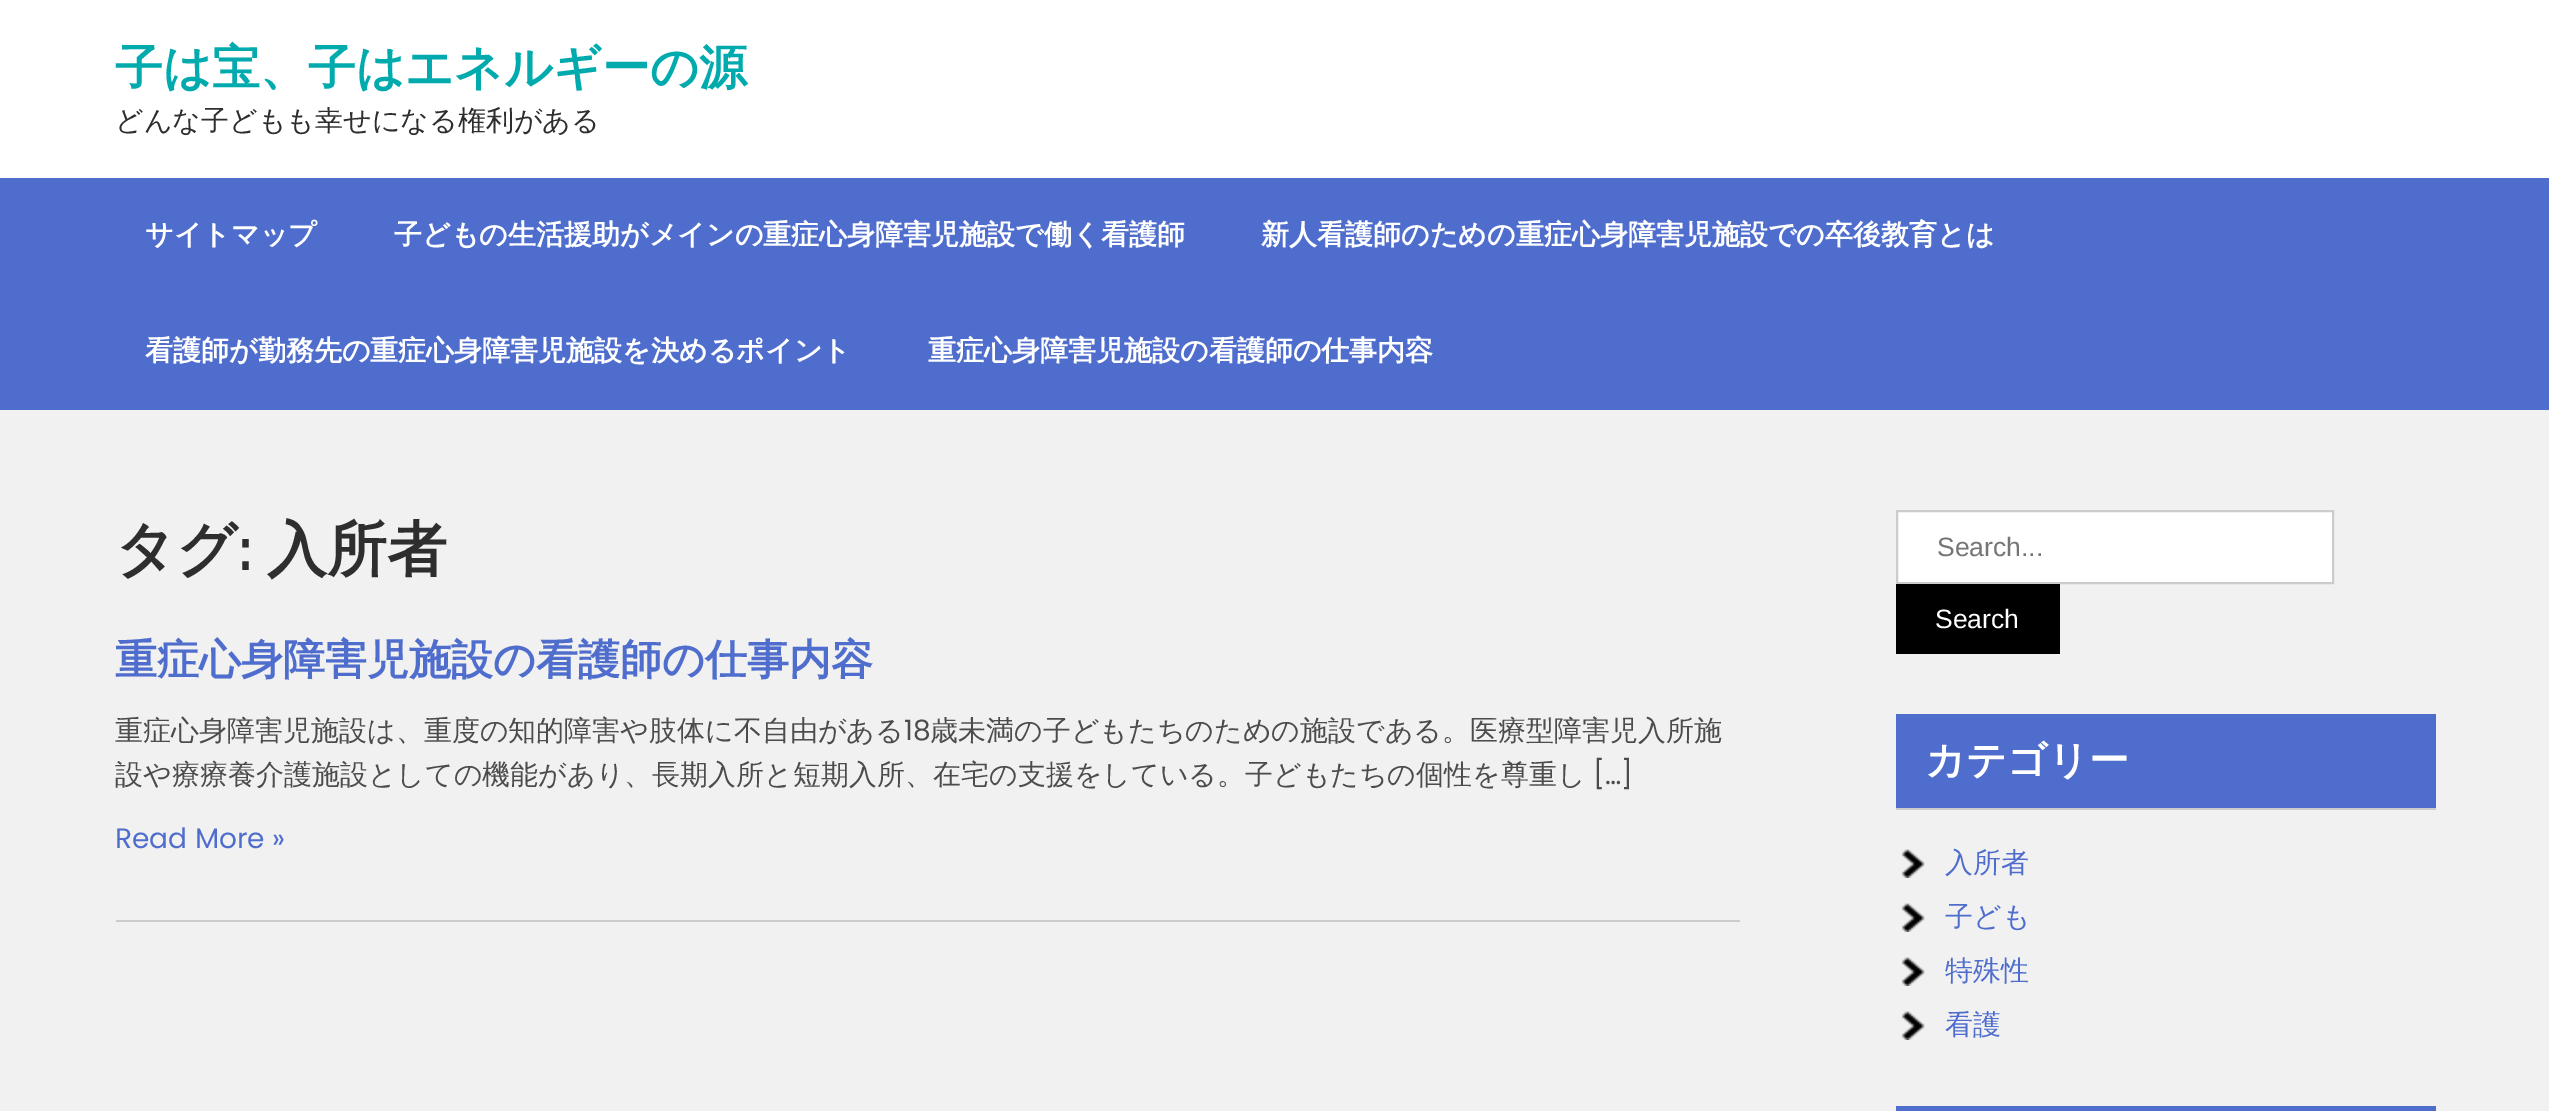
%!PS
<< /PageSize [2549 1111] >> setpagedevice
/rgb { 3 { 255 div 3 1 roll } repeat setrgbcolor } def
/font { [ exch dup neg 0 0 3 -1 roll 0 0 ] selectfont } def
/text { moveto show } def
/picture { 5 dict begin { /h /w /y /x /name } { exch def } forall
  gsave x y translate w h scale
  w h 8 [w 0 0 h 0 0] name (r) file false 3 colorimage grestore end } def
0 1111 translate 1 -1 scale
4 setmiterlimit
241 241 241 rgb
0 0 2549 1111 rectfill
255 255 255 rgb
0 0 2549 178 rectfill
79 109 205 rgb
0 178 2549 232 rectfill
204 204 204 rgb
116 920 1624 2 rectfill
255 255 255 rgb
1897 511 moveto 436 0 rlineto 0 72 rlineto -436 0 rlineto closepath gsave fill grestore
204 204 204 rgb
2 setlinewidth
stroke
0 0 0 rgb
1896 584 164 70 rectfill
79 109 205 rgb
1896 714 540 94 rectfill
204 204 204 rgb
1896 808 540 2 rectfill
(img_01.rgb) 1901 849 24 29 picture
(img_01.rgb) 1901 903 24 29 picture
(img_01.rgb) 1901 957 24 29 picture
(img_01.rgb) 1901 1011 24 29 picture
79 109 205 rgb
1896 1106 540 5 rectfill
/WenQuanYiZenHei-Bold 48 font
1 170 173 rgb
(子は宝、子はエネルギーの源) 115 84 text
/WenQuanYiZenHei-Medium 28 font
46 46 46 rgb
(どんな子どもも幸せになる権利がある) 115 130 text
/WenQuanYiZenHei-Bold 28 font
255 255 255 rgb
(サイトマップ) 145 244 text
(子どもの生活援助がメインの重症心身障害児施設で働く看護師) 394 244 text
(新人看護師のための重症心身障害児施設での卒後教育とは) 1261 244 text
(看護師が勤務先の重症心身障害児施設を決めるポイント) 145 360 text
(重症心身障害児施設の看護師の仕事内容) 928 360 text
/WenQuanYiZenHei-Bold 60 font
46 46 46 rgb
(タグ) 115 570 text
/Raleway-Bold 60 font
(:) 238 570 text
/WenQuanYiZenHei-Bold 60 font
(入所者) 267 570 text
/WenQuanYiZenHei-Bold 42 font
79 109 205 rgb
(重症心身障害児施設の看護師の仕事内容) 115 674 text
/WenQuanYiZenHei-Medium 28 font
76 76 76 rgb
(重症心身障害児施設は、重度の知的障害や肢体に不自由がある) 115 740 text
/Poppins-Regular 28 font
(18) 904 740 text
/WenQuanYiZenHei-Medium 28 font
(歳未満の子どもたちのための施設である。医療型障害児入所施) 930 740 text
(設や療療養介護施設としての機能があり、長期入所と短期入所、在宅の支援をしている。子どもたちの個性を尊重し) 115 784 text
/Poppins-Regular 28 font
([…]) 1593 784 text
79 109 205 rgb
(Read More ») 115 848 text
/LiberationSans-Regular 26.5 font
117 117 117 rgb
(Search...) 1937 556 text
255 255 255 rgb
(Search) 1935 628 text
/WenQuanYiZenHei-Bold 40 font
(カテゴリー) 1925 774 text
/WenQuanYiZenHei-Medium 28 font
79 109 205 rgb
(入所者) 1945 872 text
(子ども) 1945 926 text
(特殊性) 1945 980 text
(看護) 1945 1034 text
showpage
